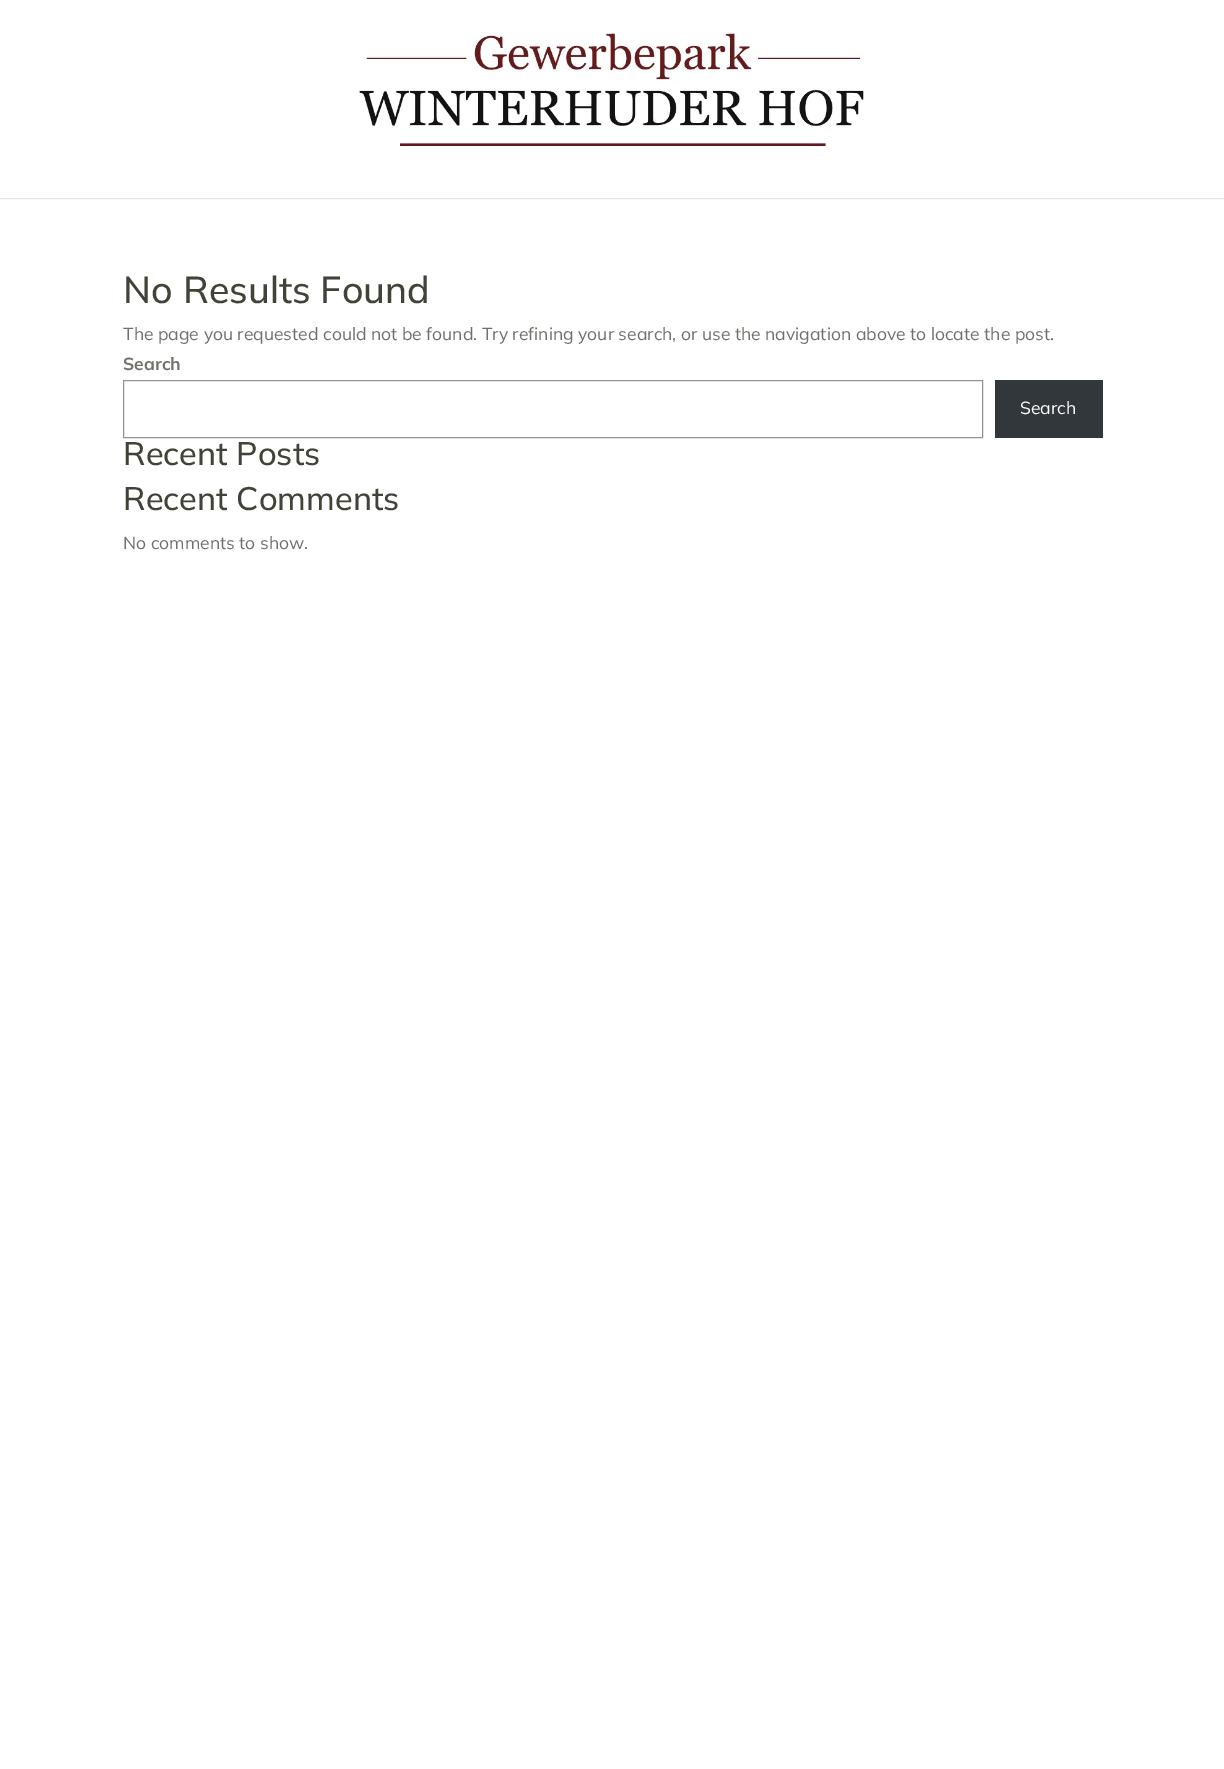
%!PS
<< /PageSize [1224 1769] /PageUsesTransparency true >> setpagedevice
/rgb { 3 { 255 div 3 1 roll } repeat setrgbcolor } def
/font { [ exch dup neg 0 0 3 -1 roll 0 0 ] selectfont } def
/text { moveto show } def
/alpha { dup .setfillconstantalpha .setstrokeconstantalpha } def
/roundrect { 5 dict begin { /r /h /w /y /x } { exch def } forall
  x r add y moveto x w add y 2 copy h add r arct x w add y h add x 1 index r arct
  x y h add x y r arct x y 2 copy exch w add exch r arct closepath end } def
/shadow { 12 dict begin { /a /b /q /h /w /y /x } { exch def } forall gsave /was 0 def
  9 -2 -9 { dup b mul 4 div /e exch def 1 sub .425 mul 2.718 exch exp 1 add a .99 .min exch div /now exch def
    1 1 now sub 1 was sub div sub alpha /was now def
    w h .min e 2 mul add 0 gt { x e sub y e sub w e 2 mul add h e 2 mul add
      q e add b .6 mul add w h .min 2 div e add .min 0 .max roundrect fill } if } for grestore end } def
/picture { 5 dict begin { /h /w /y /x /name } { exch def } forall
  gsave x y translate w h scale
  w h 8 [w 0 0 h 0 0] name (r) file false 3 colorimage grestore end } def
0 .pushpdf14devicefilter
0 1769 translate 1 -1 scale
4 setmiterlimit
255 255 255 rgb
0 0 1224 1769 rectfill
gsave
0 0 moveto 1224 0 rlineto 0 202 rlineto -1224 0 rlineto closepath 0 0 moveto 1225 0 rlineto 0 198 rlineto -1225 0 rlineto closepath eoclip newpath
0 0 0 rgb
0 0 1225 198 0 1 0.3 shadow
grestore
(img_01.rgb) 359 33 505 113 picture
148 148 148 rgb
123.5 380.5 859 57 rectstroke
50 55 60 rgb
995 380 108 58 rectfill
/Mulish-Medium 37.5 font
63 67 56 rgb
(No Results Found) 123 303 text
/Mulish-Regular 17.5 font
111 114 106 rgb
(The page you requested could not be found. Try refining your search, or use the navigation above to locate the post.) 123 340 text
/Mulish-Bold 17.5 font
(Search) 123 370 text
/Mulish-Regular 17.5 font
255 255 255 rgb
(Search) 1020 414 text
/Mulish-Medium 32.5 font
63 67 56 rgb
(Recent Posts) 123 465 text
(Recent Comments) 123 510 text
/Mulish-Regular 17.5 font
111 114 106 rgb
(No comments to show.) 123 549 text
.poppdf14devicefilter showpage
